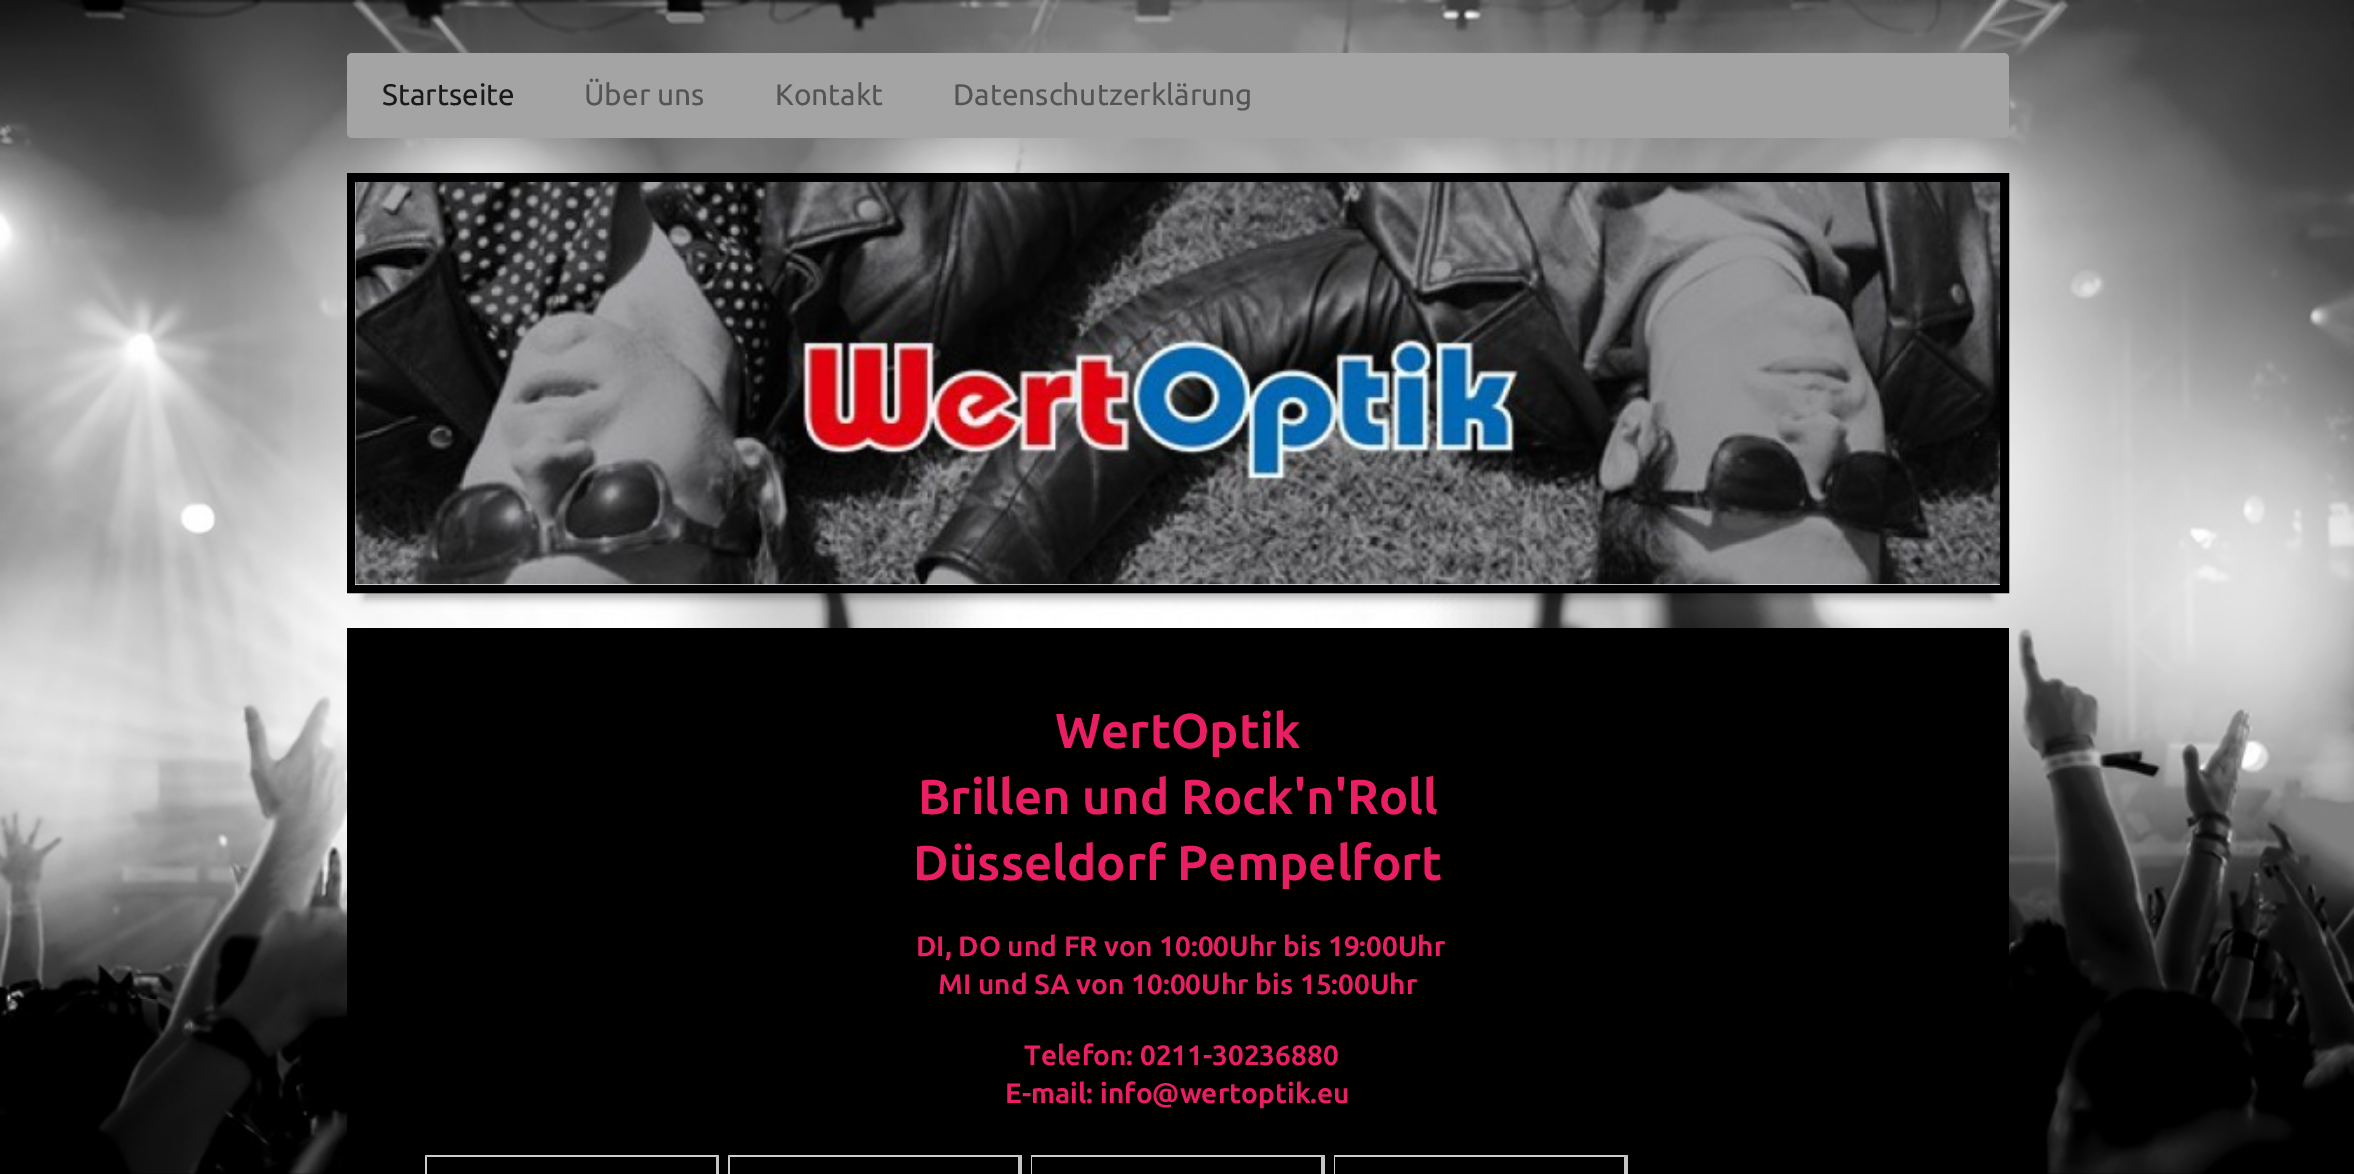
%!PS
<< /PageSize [2354 1174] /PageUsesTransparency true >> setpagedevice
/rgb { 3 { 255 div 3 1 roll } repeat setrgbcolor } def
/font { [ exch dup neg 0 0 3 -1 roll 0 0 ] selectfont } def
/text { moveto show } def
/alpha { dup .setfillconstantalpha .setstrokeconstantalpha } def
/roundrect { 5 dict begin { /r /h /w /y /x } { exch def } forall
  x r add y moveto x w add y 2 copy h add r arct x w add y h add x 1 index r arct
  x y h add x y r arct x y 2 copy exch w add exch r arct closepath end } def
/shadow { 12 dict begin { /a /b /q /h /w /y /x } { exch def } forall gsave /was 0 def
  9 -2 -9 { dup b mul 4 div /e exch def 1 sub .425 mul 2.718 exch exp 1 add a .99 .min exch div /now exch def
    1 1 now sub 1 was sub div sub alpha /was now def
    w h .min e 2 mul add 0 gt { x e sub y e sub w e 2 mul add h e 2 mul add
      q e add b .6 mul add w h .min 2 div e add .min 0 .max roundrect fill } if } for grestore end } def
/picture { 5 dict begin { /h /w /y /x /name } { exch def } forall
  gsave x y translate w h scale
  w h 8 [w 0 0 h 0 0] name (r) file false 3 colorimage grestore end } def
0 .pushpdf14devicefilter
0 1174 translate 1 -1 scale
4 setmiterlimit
255 255 255 rgb
0 0 2354 1174 rectfill
(img_01.rgb) 0 0 2354 1174 picture
164 164 164 rgb
347 53 1662 85 5 roundrect fill
0 0 0 rgb
364 179 1628 420 0 4.5 0.3 shadow
9 setlinewidth
351.5 177.5 1653 411 rectstroke
238 238 238 rgb
355 182 1645 403 rectfill
(img_02.rgb) 355 182 1646 403 picture
0 0 0 rgb
347 628 1662 546 rectfill
204 204 204 rgb
425 1155 moveto 294 0 rlineto -3 2 rlineto -289 0 rlineto closepath fill
197 197 197 rgb
719 1155 moveto 0 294 rlineto -3 -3 rlineto 0 -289 rlineto closepath fill
204 204 204 rgb
425 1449 moveto 0 -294 rlineto 2 2 rlineto 0 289 rlineto closepath fill
728 1155 moveto 294 0 rlineto -4 2 rlineto -288 0 rlineto closepath fill
197 197 197 rgb
1022 1155 moveto 0 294 rlineto -4 -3 rlineto 0 -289 rlineto closepath fill
204 204 204 rgb
728 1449 moveto 0 -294 rlineto 2 2 rlineto 0 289 rlineto closepath fill
1031 1155 moveto 294 0 rlineto -4 2 rlineto -289 0 rlineto closepath fill
197 197 197 rgb
1325 1155 moveto 0 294 rlineto -4 -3 rlineto 0 -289 rlineto closepath fill
204 204 204 rgb
1031 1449 moveto 0 -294 rlineto 1 2 rlineto 0 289 rlineto closepath fill
1334 1155 moveto 294 0 rlineto -4 2 rlineto -289 0 rlineto closepath fill
197 197 197 rgb
1628 1155 moveto 0 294 rlineto -4 -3 rlineto 0 -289 rlineto closepath fill
204 204 204 rgb
1334 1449 moveto 0 -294 rlineto 1 2 rlineto 0 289 rlineto closepath fill
/Ubuntu-Regular 29.75 font
26 26 26 rgb
(Startseite) 382 105 text
84 84 84 rgb
(Über uns) 584 105 text
(Kontakt) 775 105 text
(Datenschutzerklärung) 953 105 text
/Ubuntu-Bold 49 font
233 30 99 rgb
(WertOptik) 1055 748 text
(Brillen und Rock'n'Roll) 918 814 text
(Düsseldorf Pempelfort) 913 880 text
/Ubuntu-Bold 28 font
(DI, DO und FR von 10:00Uhr bis 19:00Uhr) 916 956 text
(MI und SA von 10:00Uhr bis 15:00Uhr) 938 994 text
(Telefon: 0211-30236880) 1024 1065 text
(E-mail: info@wertoptik.eu) 1005 1103 text
.poppdf14devicefilter showpage
